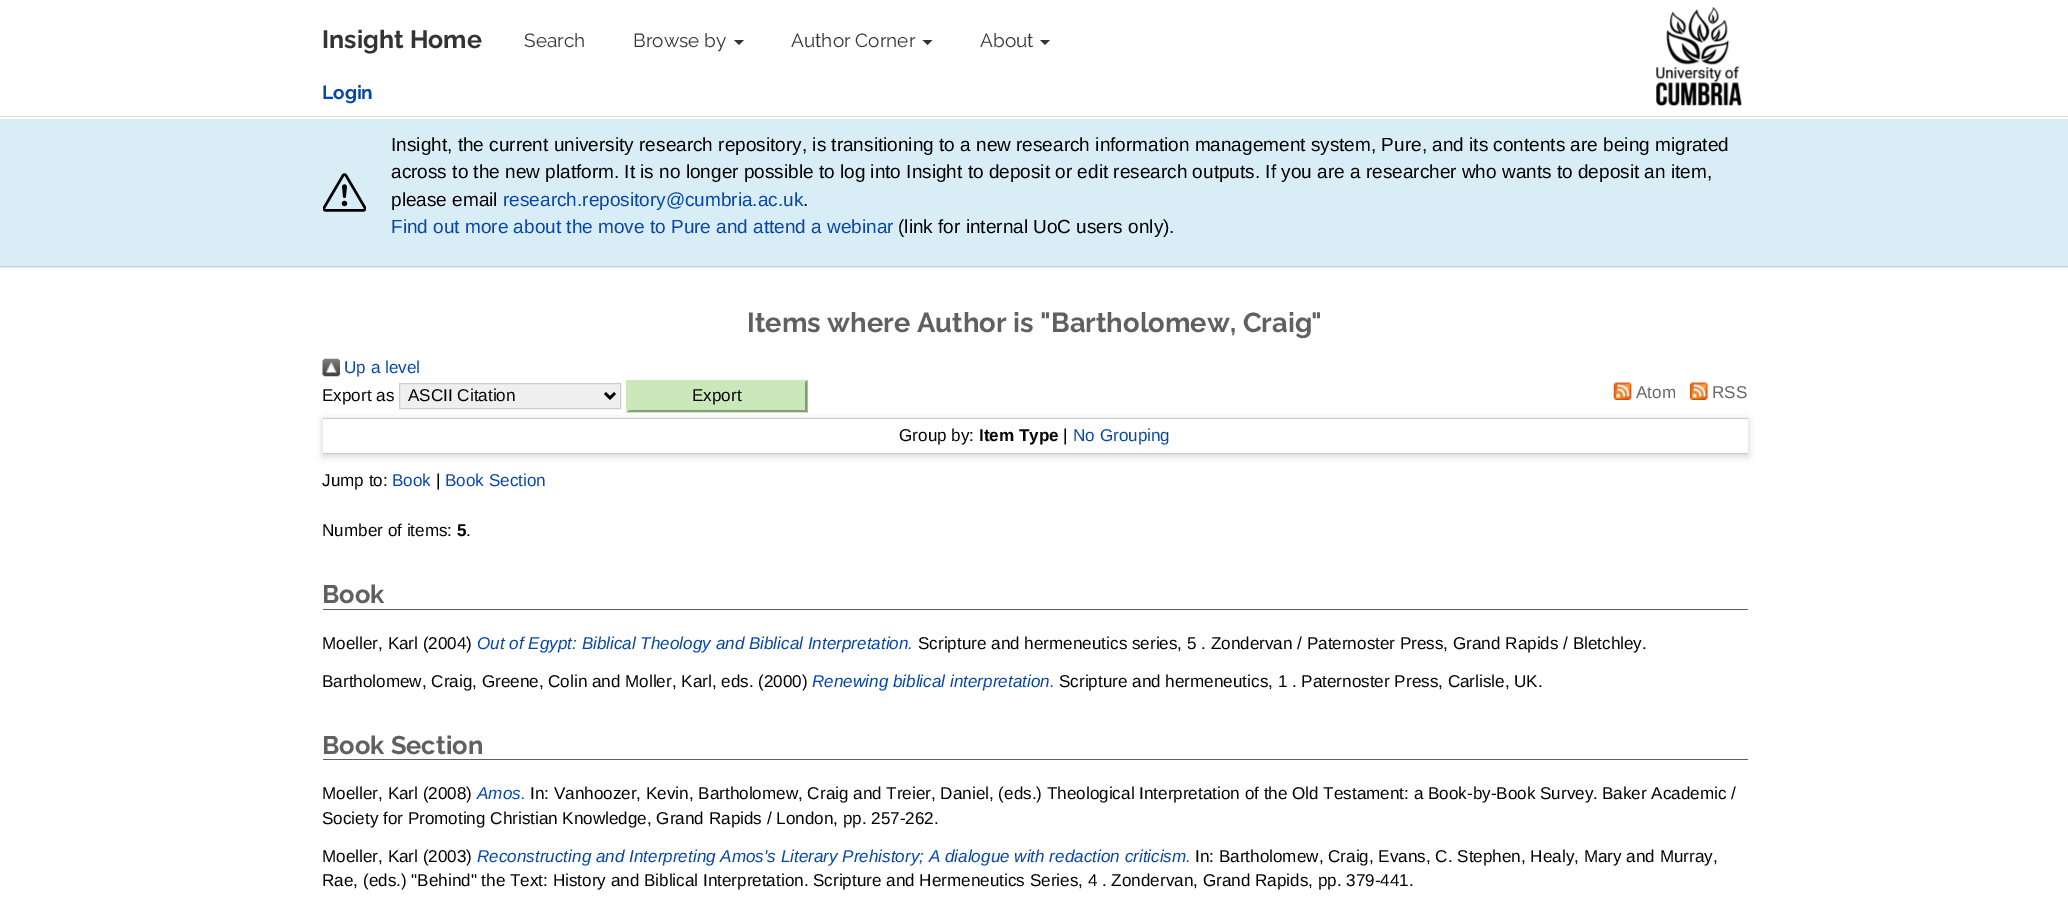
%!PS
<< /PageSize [2068 916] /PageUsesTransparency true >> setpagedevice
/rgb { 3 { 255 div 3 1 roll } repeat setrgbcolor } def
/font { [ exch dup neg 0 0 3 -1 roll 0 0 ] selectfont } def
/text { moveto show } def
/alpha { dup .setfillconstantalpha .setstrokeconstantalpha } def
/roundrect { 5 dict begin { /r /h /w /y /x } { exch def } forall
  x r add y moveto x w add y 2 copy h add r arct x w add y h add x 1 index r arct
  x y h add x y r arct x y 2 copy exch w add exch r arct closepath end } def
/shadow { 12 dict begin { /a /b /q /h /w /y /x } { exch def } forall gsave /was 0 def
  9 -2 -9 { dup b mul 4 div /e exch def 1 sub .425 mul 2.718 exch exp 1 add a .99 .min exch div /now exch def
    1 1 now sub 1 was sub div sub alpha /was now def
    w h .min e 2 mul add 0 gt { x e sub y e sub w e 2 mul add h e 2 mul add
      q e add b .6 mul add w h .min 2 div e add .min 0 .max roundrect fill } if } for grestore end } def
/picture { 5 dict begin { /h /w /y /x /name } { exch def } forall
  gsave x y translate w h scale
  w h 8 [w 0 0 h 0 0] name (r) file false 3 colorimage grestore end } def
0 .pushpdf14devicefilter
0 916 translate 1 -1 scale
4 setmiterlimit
255 255 255 rgb
0 0 2068 916 rectfill
221 221 221 rgb
0 116 2068 1 rectfill
51 51 51 rgb
734 40 moveto 10 0 rlineto -5 5 rlineto closepath fill
922.5 40 moveto 10 0 rlineto -5 5 rlineto closepath fill
1040 40 moveto 10 0 rlineto -5 5 rlineto closepath fill
(img_01.rgb) 1656 7 86 100 picture
217 237 247 rgb
0 119 2068 149 rectfill
208 208 208 rgb
0 266 2068 1 rectfill
(img_02.rgb) 323 173 43 39 picture
(img_03.rgb) 322 358 18 19 picture
100 100 100 rgb
323 420 1425 36 0 4 0.3 shadow
239 239 239 rgb
399.5 383.5 moveto 221 0 rlineto 0 25 rlineto -221 0 rlineto closepath gsave fill grestore
204 204 204 rgb
stroke
0 0 0 rgb
2.5 setlinewidth
605 393 moveto 5 5 rlineto 5 -5 rlineto stroke
203 232 187 rgb
626 380 182 33 rectfill
135 155 125 rgb
807.5 380 moveto 0 32.5 rlineto -2.5 -2.5 rlineto 0 -27.5 rlineto closepath fill
808 412 moveto -182 0 rlineto 3 -2 rlineto 176 0 rlineto closepath fill
203 232 187 rgb
626 412.5 moveto 0 -32.5 rlineto 3 2.5 rlineto 0 27.5 rlineto closepath fill
(img_04.rgb) 1613 382 19 18 picture
(img_05.rgb) 1690 382 18 18 picture
255 255 255 rgb
323 419 1425 34 rectfill
204 204 204 rgb
323 418 1425 1 rectfill
323 453 1425 1 rectfill
96 96 96 rgb
323 609 1425 1 rectfill
323 759 1425 1 rectfill
/Raleway-Bold 25 font
51 51 51 rgb
(Insight Home) 322 48 text
/Raleway-Regular 19 font
(Search) 524 47 text
(Browse by) 633 47 text
(Author Corner) 791 47 text
(About) 980 47 text
/Raleway-Bold 19 font
6 69 173 rgb
(Login) 322 99 text
/LiberationSans-Regular 19 font
0 0 0 rgb
(Insight, the current university research repository, is transitioning to a new research information management system, Pure, and its contents are being migrated) 391 151 text
(across to the new platform. It is no longer possible to log into Insight to deposit or edit research outputs. If you are a researcher who wants to deposit an item,) 391 178 text
(please email) 391 206 text
6 69 173 rgb
(research.repository@cumbria.ac.uk) 503 206 text
0 0 0 rgb
(.) 803 206 text
6 69 173 rgb
(Find out more about the move to Pure and attend a webinar) 391 233 text
0 0 0 rgb
(\(link for internal UoC users only\).) 898 233 text
/Raleway-Bold 27.4 font
96 96 96 rgb
(Items where Author is "Bartholomew, Craig) 747 332 text
(") 1311 332 text
/LiberationSans-Regular 17.1 font
6 69 173 rgb
(Up a level) 344 373 text
0 0 0 rgb
(Export as) 322 401 text
(ASCII Citation) 408 401 text
(Export) 692 401 text
102 102 102 rgb
(Atom) 1636 398 text
(RSS) 1712 398 text
0 0 0 rgb
(Group by:) 899 441 text
/LiberationSans-Bold 17.1 font
(Item Type) 979 441 text
/LiberationSans-Regular 17.1 font
(|) 1063 441 text
6 69 173 rgb
(No Grouping) 1073 441 text
0 0 0 rgb
(Jump to:) 322 486 text
6 69 173 rgb
(Book) 392 486 text
0 0 0 rgb
(|) 436 486 text
6 69 173 rgb
(Book Section) 445 486 text
0 0 0 rgb
(Number of items:) 322 536 text
/LiberationSans-Bold 17.1 font
(5) 457 536 text
/LiberationSans-Regular 17.1 font
(.) 466 536 text
/Raleway-Bold 25.5 font
96 96 96 rgb
(Book) 322 603 text
/LiberationSans-Regular 17.1 font
0 0 0 rgb
(Moeller, Karl \(2004\)) 322 649 text
/LiberationSans-Italic 17.1 font
6 69 173 rgb
(Out of Egypt: Biblical Theology and Biblical Interpretation.) 477 649 text
/LiberationSans-Regular 17.1 font
0 0 0 rgb
(Scripture and hermeneutics series, 5 . Zondervan / Paternoster Press, Grand Rapids / Bletchley.) 918 649 text
(Bartholomew, Craig, Greene, Colin and Moller, Karl, eds. \(2000\)) 322 687 text
/LiberationSans-Italic 17.1 font
6 69 173 rgb
(Renewing biblical interpretation.) 812 687 text
/LiberationSans-Regular 17.1 font
0 0 0 rgb
(Scripture and hermeneutics, 1 . Paternoster Press, Carlisle, UK.) 1059 687 text
/Raleway-Bold 25.5 font
96 96 96 rgb
(Book Section) 322 754 text
/LiberationSans-Regular 17.1 font
0 0 0 rgb
(Moeller, Karl \(2008\)) 322 799 text
/LiberationSans-Italic 17.1 font
6 69 173 rgb
(Amos.) 477 799 text
/LiberationSans-Regular 17.1 font
0 0 0 rgb
(In: Vanhoozer, Kevin, Bartholomew, Craig and Treier, Daniel, \(eds.\) Theological Interpretation of the Old Testament: a Book-by-Book Survey.) 530 799 text
(Baker Academic /) 1602 799 text
(Society for Promoting Christian Knowledge, Grand Rapids / London, pp. 257-262.) 322 824 text
(Moeller, Karl \(2003\)) 322 862 text
/LiberationSans-Italic 17.1 font
6 69 173 rgb
(Reconstructing and Interpreting Amos's Literary Prehistory; A dialogue with redaction criticism.) 477 862 text
/LiberationSans-Regular 17.1 font
0 0 0 rgb
(In: Bartholomew, Craig, Evans, C. Stephen, Healy, Mary and Murray,) 1195 862 text
(Rae, \(eds.\) "Behind" the Text: History and Biblical Interpretation. Scripture and Hermeneutics Series, 4 . Zondervan, Grand Rapids, pp. 379-441.) 322 886 text
.poppdf14devicefilter showpage
